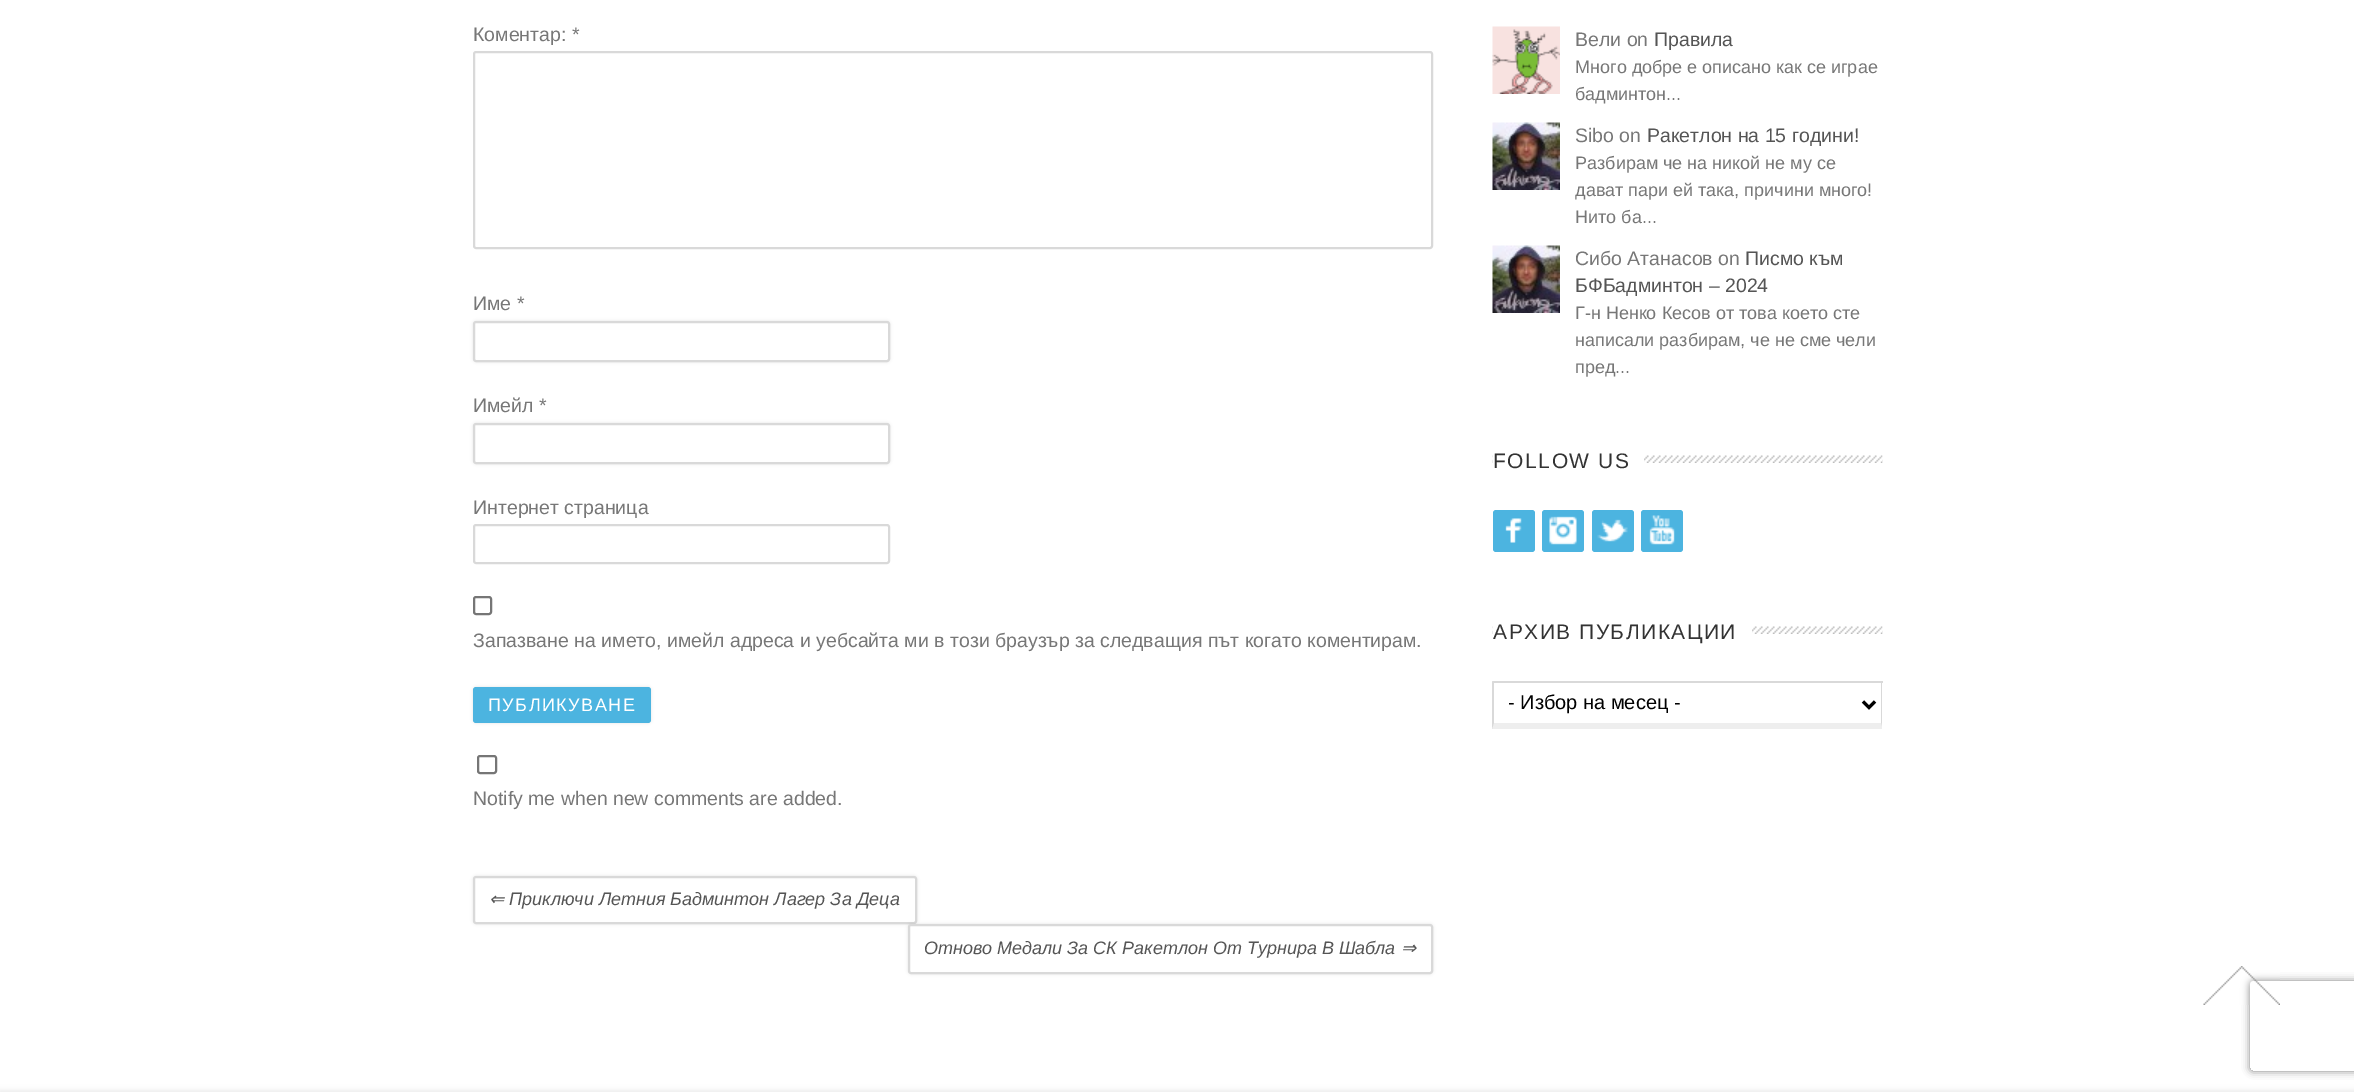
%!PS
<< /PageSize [2354 1092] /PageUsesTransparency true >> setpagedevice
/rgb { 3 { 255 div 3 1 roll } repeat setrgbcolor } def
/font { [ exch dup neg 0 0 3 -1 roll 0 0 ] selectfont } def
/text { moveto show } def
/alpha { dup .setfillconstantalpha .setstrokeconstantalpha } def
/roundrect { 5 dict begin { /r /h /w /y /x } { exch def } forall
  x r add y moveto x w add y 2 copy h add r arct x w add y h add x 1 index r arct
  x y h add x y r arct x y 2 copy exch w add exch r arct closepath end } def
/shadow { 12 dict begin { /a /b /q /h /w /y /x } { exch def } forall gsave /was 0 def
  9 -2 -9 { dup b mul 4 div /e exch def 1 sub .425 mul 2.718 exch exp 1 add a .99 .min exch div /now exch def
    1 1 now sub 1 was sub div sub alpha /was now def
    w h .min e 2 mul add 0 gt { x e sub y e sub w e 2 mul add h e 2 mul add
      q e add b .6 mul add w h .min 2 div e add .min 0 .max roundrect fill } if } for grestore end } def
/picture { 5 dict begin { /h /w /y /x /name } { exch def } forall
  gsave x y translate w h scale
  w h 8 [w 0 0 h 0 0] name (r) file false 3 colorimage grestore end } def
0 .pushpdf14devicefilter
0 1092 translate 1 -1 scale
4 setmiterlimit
255 255 255 rgb
0 0 2354 1092 rectfill
217 217 217 rgb
2 setlinewidth
474 52 958 196 2 roundrect stroke
gsave
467 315 moveto 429 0 rlineto 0 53 rlineto -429 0 rlineto closepath 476 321 moveto 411 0 rlineto 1.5 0 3 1.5 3 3 rcurveto 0 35 rlineto 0 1.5 -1.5 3 -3 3 rcurveto -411 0 rlineto -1.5 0 -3 -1.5 -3 -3 rcurveto 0 -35 rlineto 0 -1.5 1.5 -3 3 -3 rcurveto closepath eoclip newpath
0 0 0 rgb
473 321 417 41 3 1.5 0.1 shadow
grestore
474 322 415 39 2 roundrect stroke
gsave
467 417 moveto 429 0 rlineto 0 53 rlineto -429 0 rlineto closepath 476 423 moveto 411 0 rlineto 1.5 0 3 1.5 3 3 rcurveto 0 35 rlineto 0 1.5 -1.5 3 -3 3 rcurveto -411 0 rlineto -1.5 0 -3 -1.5 -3 -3 rcurveto 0 -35 rlineto 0 -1.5 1.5 -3 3 -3 rcurveto closepath eoclip newpath
0 0 0 rgb
473 423 417 41 3 1.5 0.1 shadow
grestore
474 424 415 39 2 roundrect stroke
474 525 415 38 2 roundrect stroke
118 118 118 rgb
474 597 17 17 2 roundrect stroke
0 0 0 rgb
473 687 178 36 3 1.5 0.1 shadow
76 180 224 rgb
473 687 178 36 3 roundrect fill
118 118 118 rgb
478 756 18 17 2 roundrect stroke
0 0 0 rgb
473 876 444 48 3 1.5 0.1 shadow
255 255 255 rgb
474 877 442 46 2 roundrect gsave fill grestore
217 217 217 rgb
stroke
0 0 0 rgb
908 924 525 50 3 1.5 0.1 shadow
255 255 255 rgb
909 925 523 48 2 roundrect gsave fill grestore
217 217 217 rgb
stroke
(img_01.rgb) 1492 26 68 68 picture
(img_02.rgb) 1492 122 68 68 picture
(img_02.rgb) 1492 245 68 68 picture
(img_03.rgb) 1492 455 391 8 picture
255 255 255 rgb
1493 455 151 8 rectfill
76 180 224 rgb
1493 510 42 42 3 roundrect fill
(img_04.rgb) 1505 518 17 25 picture
1542 510 42 42 3 roundrect fill
(img_05.rgb) 1549 516 28 29 picture
1592 510 42 42 3 roundrect fill
(img_06.rgb) 1597 519 31 23 picture
1641 510 42 42 3 roundrect fill
(img_07.rgb) 1649 515 26 30 picture
(img_03.rgb) 1492 626 391 8 picture
255 255 255 rgb
1493 626 259 8 rectfill
217 217 217 rgb
1493 681 390 2 rectfill
1882 681 moveto 0 48 rlineto -1 -6 rlineto 0 -41 rlineto closepath fill
238 238 238 rgb
1882 729 moveto -390 0 rlineto 2 -6 rlineto 387 0 rlineto closepath fill
217 217 217 rgb
1492 729 moveto 0 -48 rlineto 2 1 rlineto 0 41 rlineto closepath fill
0 0 0 rgb
3 setlinewidth
1863 701.5 moveto 6 6 rlineto 6 -6 rlineto stroke
0 1091 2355 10 0 3 0.1 shadow
gsave
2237 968 moveto 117 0 rlineto 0 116 rlineto -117 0 rlineto closepath 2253 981 moveto 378 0 rlineto 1.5 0 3 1.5 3 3 rcurveto 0 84 rlineto 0 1.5 -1.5 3 -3 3 rcurveto -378 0 rlineto -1.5 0 -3 -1.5 -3 -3 rcurveto 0 -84 rlineto 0 -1.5 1.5 -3 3 -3 rcurveto closepath eoclip newpath
128 128 128 rgb
2250 981 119 90 3 4 1 shadow
grestore
(img_08.rgb) 2203 966 77 39 picture
/LiberationSans-Regular 19.5 font
119 119 119 rgb
(Коментар: *) 473 41 text
(Име *) 473 310 text
(Имейл *) 473 412 text
(Интернет страница) 473 514 text
(Запазване на името, имейл адреса и уебсайта ми в този браузър за следващия път когато коментирам.) 473 647 text
/LiberationSans-Regular 18 font
255 255 255 rgb
488 711 moveto 1.5 0 (ПУБЛИКУВАНЕ) ashow
/LiberationSans-Regular 19.5 font
119 119 119 rgb
(Notify me when new comments are added.) 473 805 text
/DejaVuSans-Italic 18 font
85 85 85 rgb
(⇐) 489 905 text
/LiberationSans-Italic 18 font
(Приключи Летния Бадминтон Лагер За Деца) 509 905 text
(Отново Медали За СК Ракетлон От Турнира В Шабла) 924 954 text
/DejaVuSans-Italic 18 font
(⇒) 1401 954 text
/LiberationSans-Regular 19.5 font
119 119 119 rgb
(Вели on) 1575 46 text
85 85 85 rgb
(Правила) 1654 46 text
/LiberationSans-Regular 18 font
119 119 119 rgb
(Много добре е описано как се играе) 1575 73 text
(бадминтон...) 1575 100 text
/LiberationSans-Regular 19.5 font
(Sibo on) 1575 142 text
85 85 85 rgb
(Ракетлон на 15 години!) 1647 142 text
/LiberationSans-Regular 18 font
119 119 119 rgb
(Разбирам че на никой не му се) 1575 169 text
(дават пари ей така, причини много!) 1575 196 text
(Нито ба...) 1575 223 text
/LiberationSans-Regular 19.5 font
(Сибо Атанасов on) 1575 265 text
85 85 85 rgb
(Писмо към) 1745 265 text
(БФБадминтон – 2024) 1575 292 text
/LiberationSans-Regular 18 font
119 119 119 rgb
(Г-н Ненко Кесов от това което сте) 1575 319 text
(написали разбирам, че не сме чели) 1575 346 text
(пред...) 1575 373 text
/LiberationSans-Regular 21 font
51 51 51 rgb
1493 468 moveto 1.5 0 (FOLLOW US) ashow
1493 639 moveto 1.5 0 (АРХИВ ПУБЛИКАЦИИ) ashow
/LiberationSans-Regular 20 font
0 0 0 rgb
(- Избор на месец -) 1508 709 text
.poppdf14devicefilter showpage
